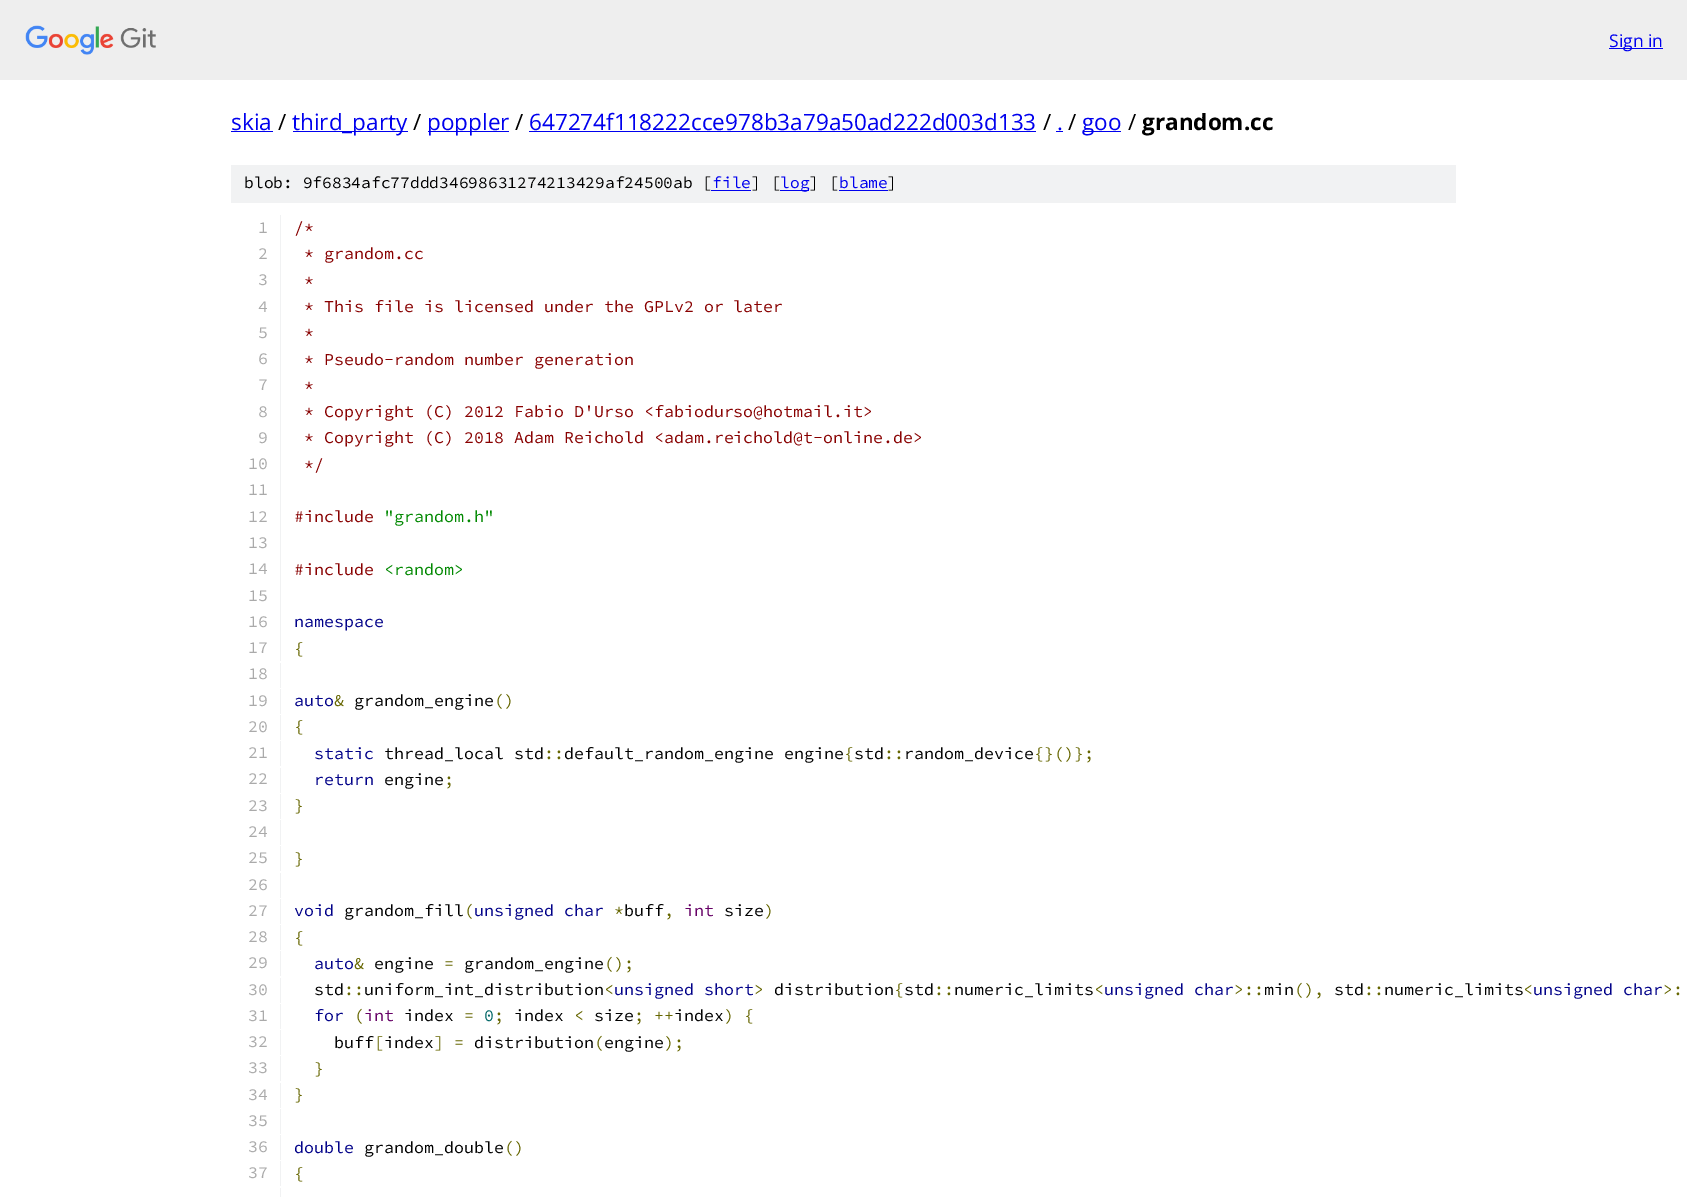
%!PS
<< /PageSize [1687 1197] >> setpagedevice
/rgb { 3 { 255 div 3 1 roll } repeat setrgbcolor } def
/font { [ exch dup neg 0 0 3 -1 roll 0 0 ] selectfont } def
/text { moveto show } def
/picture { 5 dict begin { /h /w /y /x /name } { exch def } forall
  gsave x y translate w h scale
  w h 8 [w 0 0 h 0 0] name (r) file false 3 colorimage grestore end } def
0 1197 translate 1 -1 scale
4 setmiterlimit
255 255 255 rgb
0 0 1687 1197 rectfill
238 238 238 rgb
0 0 1687 80 rectfill
(img_01.rgb) 25 25 131 30 picture
0 0 238 rgb
1609 48 54 1 rectfill
231 131 42 1 rectfill
293 131 115 1 rectfill
428 131 81 1 rectfill
529 131 507 1 rectfill
1056 131 7 1 rectfill
1083 131 38 1 rectfill
241 242 243 rgb
231 165 1225 38 rectfill
0 0 238 rgb
711 190 40 1 rectfill
780 190 29 1 rectfill
839 190 49 1 rectfill
241 242 243 rgb
280 215 1 446 rectfill
280 663 1 25 rectfill
280 689 1 25 rectfill
280 715 1 25 rectfill
280 741 1 25 rectfill
280 768 1 25 rectfill
280 794 1 25 rectfill
280 820 1 25 rectfill
280 846 1 25 rectfill
280 873 1 25 rectfill
280 899 1 25 rectfill
280 925 1 25 rectfill
280 951 1 25 rectfill
280 978 1 25 rectfill
280 1004 1 25 rectfill
280 1030 1 25 rectfill
280 1056 1 25 rectfill
280 1083 1 25 rectfill
280 1109 1 25 rectfill
280 1135 1 25 rectfill
280 1161 1 25 rectfill
280 1188 1 9 rectfill
/OpenSans-Regular 17.5 font
0 0 238 rgb
(Sign in) 1609 47 text
/OpenSans-Regular 22.5 font
(skia) 231 130 text
0 0 0 rgb
(/) 278 130 text
0 0 238 rgb
(third_party) 292 130 text
0 0 0 rgb
(/) 413 130 text
0 0 238 rgb
(poppler) 427 130 text
0 0 0 rgb
(/) 515 130 text
0 0 238 rgb
(647274f118222cce978b3a79a50ad222d003d133) 529 130 text
0 0 0 rgb
(/) 1043 130 text
0 0 238 rgb
(.) 1057 130 text
0 0 0 rgb
(/) 1068 130 text
0 0 238 rgb
(goo) 1082 130 text
0 0 0 rgb
(/) 1128 130 text
/OpenSans-Bold 22.5 font
(grandom.cc) 1142 130 text
/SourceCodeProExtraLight-ExtraLight 16.25 font
(blob: 9f6834afc77ddd34698631274213429af24500ab [) 244 188 text
0 0 238 rgb
(file) 712 188 text
0 0 0 rgb
(] [) 751 188 text
0 0 238 rgb
(log) 780 188 text
0 0 0 rgb
(] [) 809 188 text
0 0 238 rgb
(blame) 839 188 text
0 0 0 rgb
(]) 887 188 text
/SourceCodeProExtraLight-ExtraLight 16.65 font
170 170 170 rgb
(1) 258 233 text
136 0 0 rgb
(/*) 294 233 text
170 170 170 rgb
(2) 258 259 text
136 0 0 rgb
(* grandom.cc) 304 259 text
170 170 170 rgb
(3) 258 285 text
136 0 0 rgb
(*) 304 286 text
170 170 170 rgb
(4) 258 312 text
136 0 0 rgb
(* This file is licensed under the GPLv2 or later) 304 312 text
170 170 170 rgb
(5) 258 338 text
136 0 0 rgb
(*) 304 338 text
170 170 170 rgb
(6) 258 364 text
136 0 0 rgb
(* Pseudo-random number generation) 304 365 text
170 170 170 rgb
(7) 258 390 text
136 0 0 rgb
(*) 304 391 text
170 170 170 rgb
(8) 258 417 text
136 0 0 rgb
(* Copyright \(C\) 2012 Fabio D'Urso <fabiodurso@hotmail.it>) 304 417 text
170 170 170 rgb
(9) 258 443 text
136 0 0 rgb
(* Copyright \(C\) 2018 Adam Reichold <adam.reichold@t-online.de>) 304 443 text
170 170 170 rgb
(10) 248 469 text
136 0 0 rgb
(*/) 304 470 text
170 170 170 rgb
(11) 248 495 text
(12) 248 522 text
136 0 0 rgb
(#include) 294 522 text
0 136 0 rgb
("grandom.h") 384 522 text
170 170 170 rgb
(13) 248 548 text
(14) 248 574 text
136 0 0 rgb
(#include) 294 575 text
0 136 0 rgb
(<random>) 384 575 text
170 170 170 rgb
(15) 248 601 text
(16) 248 627 text
0 0 136 rgb
(namespace) 294 627 text
170 170 170 rgb
(17) 248 653 text
102 102 0 rgb
({) 294 654 text
170 170 170 rgb
(18) 248 679 text
(19) 248 706 text
0 0 136 rgb
(auto) 294 706 text
102 102 0 rgb
(&) 334 706 text
0 0 0 rgb
(grandom_engine) 354 706 text
102 102 0 rgb
(\(\)) 494 706 text
170 170 170 rgb
(20) 248 732 text
102 102 0 rgb
({) 294 732 text
170 170 170 rgb
(21) 248 758 text
0 0 136 rgb
(static) 314 759 text
0 0 0 rgb
(thread_local std) 384 759 text
(default_random_engine engine std) 564 759 text
102 102 0 rgb
({}\(\)};) 1034 759 text
(::) 544 759 text
({) 844 759 text
(::) 884 759 text
0 0 0 rgb
(random_device) 904 759 text
170 170 170 rgb
(22) 248 784 text
0 0 136 rgb
(return) 314 785 text
0 0 0 rgb
(engine) 384 785 text
102 102 0 rgb
(;) 444 785 text
170 170 170 rgb
(23) 248 811 text
102 102 0 rgb
(}) 294 811 text
170 170 170 rgb
(24) 248 837 text
(25) 248 863 text
102 102 0 rgb
(}) 294 864 text
170 170 170 rgb
(26) 248 890 text
(27) 248 916 text
0 0 136 rgb
(void) 294 916 text
0 0 0 rgb
(grandom_fill) 344 916 text
102 102 0 rgb
(\() 464 916 text
0 0 136 rgb
(unsigned char) 474 916 text
102 102 0 rgb
(*) 614 916 text
0 0 0 rgb
(buff) 624 916 text
102 0 102 rgb
(int) 684 916 text
0 0 0 rgb
(size) 724 916 text
102 102 0 rgb
(\)) 764 916 text
(,) 664 916 text
170 170 170 rgb
(28) 248 942 text
102 102 0 rgb
({) 294 943 text
170 170 170 rgb
(29) 248 968 text
0 0 136 rgb
(auto) 314 969 text
102 102 0 rgb
(&) 354 969 text
0 0 0 rgb
(engine) 374 969 text
102 102 0 rgb
(=) 444 969 text
0 0 0 rgb
(grandom_engine) 464 969 text
102 102 0 rgb
(\(\);) 604 969 text
170 170 170 rgb
(30) 248 995 text
0 0 0 rgb
(std) 314 995 text
(uniform_int_distribution) 364 995 text
0 0 136 rgb
(unsigned short) 614 995 text
0 0 0 rgb
(distribution std) 774 995 text
102 102 0 rgb
(\(\),) 1294 995 text
(::) 344 995 text
(<) 604 995 text
(>) 754 995 text
({) 894 995 text
(::) 934 995 text
0 0 0 rgb
(numeric_limits) 954 995 text
102 102 0 rgb
(<) 1094 995 text
0 0 136 rgb
(unsigned char) 1104 995 text
102 102 0 rgb
(>::) 1234 995 text
0 0 0 rgb
(min) 1264 995 text
(std) 1334 995 text
102 102 0 rgb
(::) 1364 995 text
0 0 0 rgb
(numeric_limits) 1384 995 text
102 102 0 rgb
(<) 1523 995 text
0 0 136 rgb
(unsigned char) 1533 995 text
102 102 0 rgb
(>:) 1663 995 text
170 170 170 rgb
(31) 248 1021 text
0 0 136 rgb
(for) 314 1021 text
102 102 0 rgb
(\() 354 1021 text
102 0 102 rgb
(int) 364 1021 text
0 0 0 rgb
(index) 404 1021 text
102 102 0 rgb
(=) 464 1021 text
0 102 102 rgb
(0) 484 1021 text
102 102 0 rgb
(;) 494 1021 text
0 0 0 rgb
(index) 514 1021 text
102 102 0 rgb
(<) 574 1021 text
0 0 0 rgb
(size) 594 1021 text
102 102 0 rgb
(; ++) 634 1021 text
0 0 0 rgb
(index) 674 1021 text
102 102 0 rgb
(\) {) 724 1021 text
170 170 170 rgb
(32) 248 1047 text
0 0 0 rgb
(buff index) 334 1048 text
102 102 0 rgb
(\);) 664 1048 text
([) 374 1048 text
(] =) 434 1048 text
0 0 0 rgb
(distribution engine) 474 1048 text
102 102 0 rgb
(\() 594 1048 text
170 170 170 rgb
(33) 248 1073 text
102 102 0 rgb
(}) 314 1074 text
170 170 170 rgb
(34) 248 1100 text
102 102 0 rgb
(}) 294 1100 text
170 170 170 rgb
(35) 248 1126 text
(36) 248 1152 text
0 0 136 rgb
(double) 294 1153 text
0 0 0 rgb
(grandom_double) 364 1153 text
102 102 0 rgb
(\(\)) 504 1153 text
170 170 170 rgb
(37) 248 1178 text
102 102 0 rgb
({) 294 1179 text
showpage
